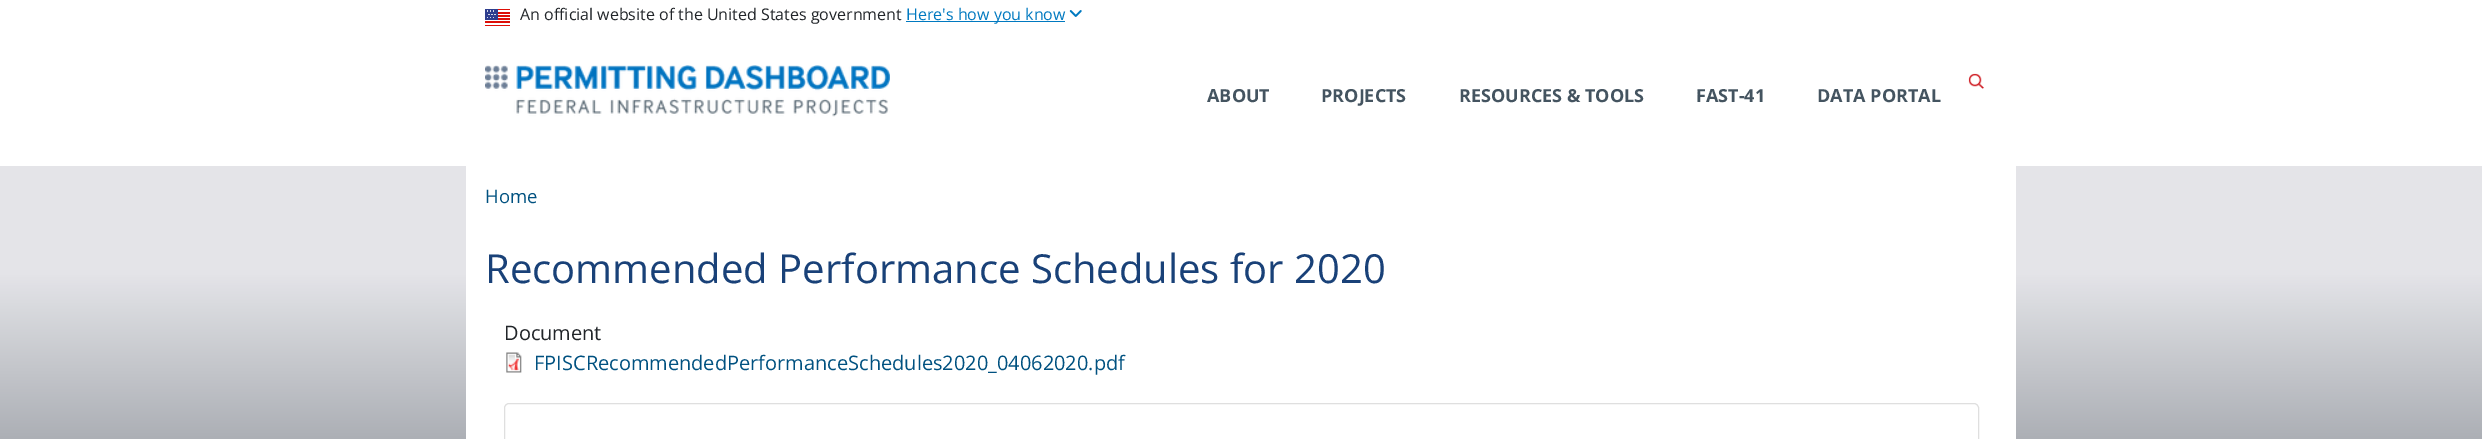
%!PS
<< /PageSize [2482 439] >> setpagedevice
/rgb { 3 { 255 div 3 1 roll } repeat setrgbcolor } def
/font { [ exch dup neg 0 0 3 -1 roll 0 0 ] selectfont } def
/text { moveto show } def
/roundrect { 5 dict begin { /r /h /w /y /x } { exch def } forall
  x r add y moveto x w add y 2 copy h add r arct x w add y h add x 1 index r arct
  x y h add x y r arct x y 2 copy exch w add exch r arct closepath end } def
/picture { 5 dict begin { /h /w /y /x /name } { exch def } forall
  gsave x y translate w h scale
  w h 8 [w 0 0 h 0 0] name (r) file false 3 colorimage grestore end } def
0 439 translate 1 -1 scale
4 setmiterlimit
255 255 255 rgb
0 0 2482 439 rectfill
(img_01.rgb) 485 9 25 17 picture
0 121 192 rgb
906 21 159 1 rectfill
(img_02.rgb) 1069 10 13 7 picture
(img_03.rgb) 485 65 405 52 picture
(img_04.rgb) 1968 73 16 16 picture
gsave 0 166 moveto 2482 0 rlineto 0 273 rlineto -2482 0 rlineto closepath clip newpath
<< /ShadingType 2 /ColorSpace /DeviceRGB /Coords [1241 166 1241 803] /Extend [true true] /Function << /FunctionType 3 /Domain [0 1] /Functions [<< /FunctionType 2 /Domain [0 1] /C0 [0.894 0.894 0.91] /C1 [0.894 0.894 0.91] /N 1 >> << /FunctionType 2 /Domain [0 1] /C0 [0.894 0.894 0.91] /C1 [0.192 0.224 0.267] /N 1 >>] /Bounds [0.17] /Encode [0 1 0 1] >> >> shfill grestore
255 255 255 rgb
466 166 1550 273 rectfill
(img_05.rgb) 506 352 16 21 picture
223 223 223 rgb
504.5 403.5 1474 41 4.5 roundrect stroke
/OpenSans-Regular 16 font
33 37 41 rgb
(An official website of the United States government) 520 20 text
0 121 192 rgb
(Here's how you know) 906 20 text
/OpenSans-Bold 18 font
68 84 96 rgb
(ABOUT) 1207 102 text
(PROJECTS) 1321 102 text
(RESOURCES & TOOLS) 1459 102 text
(FAST-41) 1696 102 text
(DATA PORTAL) 1817 102 text
/OpenSans-Regular 18.5 font
0 81 128 rgb
(Home) 485 203 text
/OpenSans-Regular 40 font
25 65 120 rgb
(Recommended Performance Schedules for 2020) 485 283 text
/OpenSans-Regular 20 font
33 37 41 rgb
(Document) 504 340 text
0 81 128 rgb
(FPISCRecommendedPerformanceSchedules2020_04062020.pdf) 534 370 text
showpage
